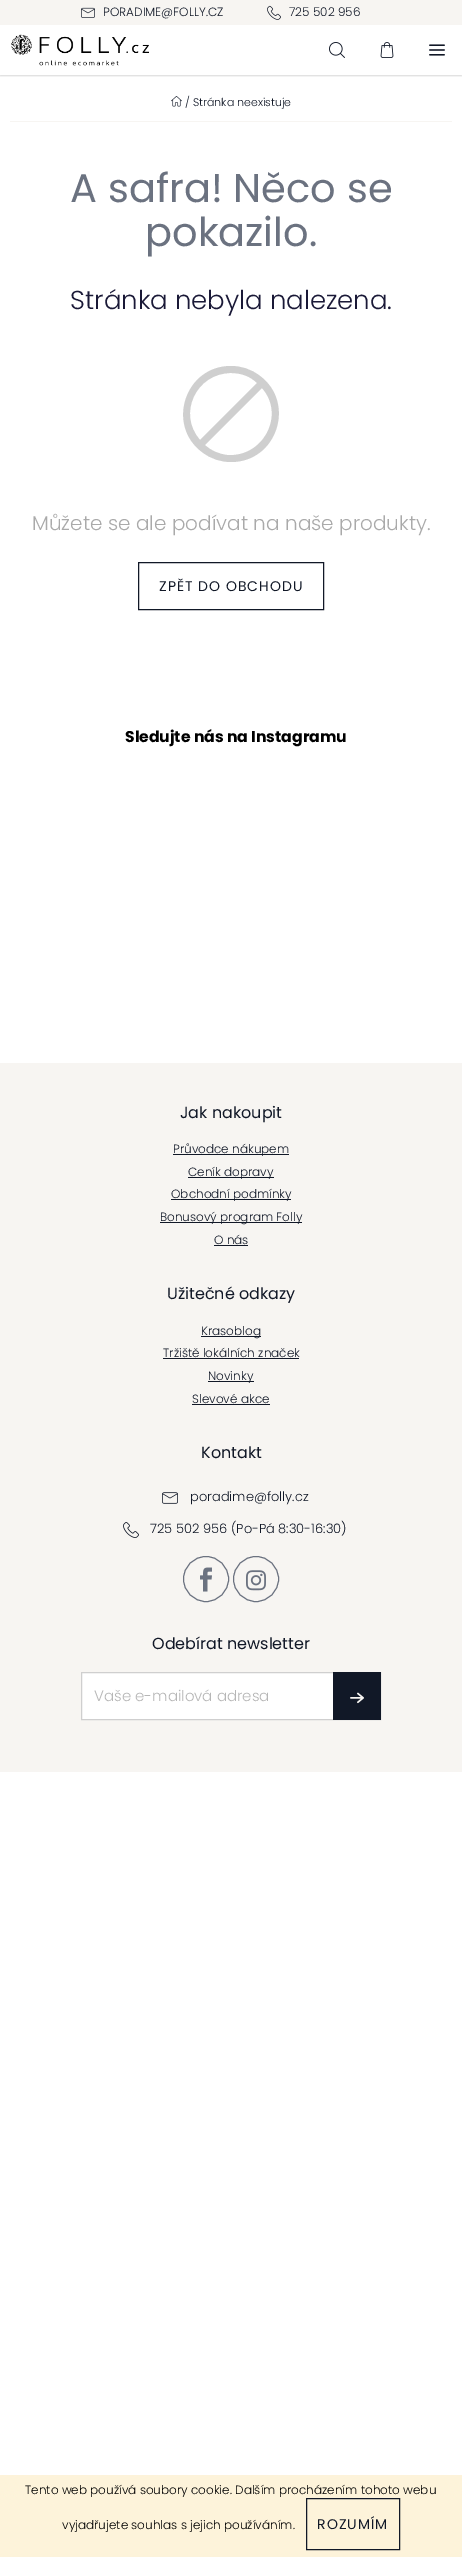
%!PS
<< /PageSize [462 2557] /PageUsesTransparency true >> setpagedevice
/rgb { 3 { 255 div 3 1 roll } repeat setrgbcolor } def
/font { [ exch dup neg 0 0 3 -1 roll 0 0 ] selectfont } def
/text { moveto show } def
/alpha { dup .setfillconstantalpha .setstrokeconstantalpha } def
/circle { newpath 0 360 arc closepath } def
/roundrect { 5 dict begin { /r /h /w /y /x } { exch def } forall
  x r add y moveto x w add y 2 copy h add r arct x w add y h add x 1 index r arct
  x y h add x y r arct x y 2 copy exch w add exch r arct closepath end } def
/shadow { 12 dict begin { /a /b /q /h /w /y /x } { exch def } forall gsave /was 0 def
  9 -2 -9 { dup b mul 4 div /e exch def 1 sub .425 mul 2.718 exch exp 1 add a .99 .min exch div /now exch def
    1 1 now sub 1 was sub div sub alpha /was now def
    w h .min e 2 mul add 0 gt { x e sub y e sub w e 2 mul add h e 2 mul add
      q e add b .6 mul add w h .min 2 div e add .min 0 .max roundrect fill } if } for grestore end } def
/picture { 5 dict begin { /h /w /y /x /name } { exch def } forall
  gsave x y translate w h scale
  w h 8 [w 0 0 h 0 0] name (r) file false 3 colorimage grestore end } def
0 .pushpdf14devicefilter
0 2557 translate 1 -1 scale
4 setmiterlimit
255 255 255 rgb
0 0 462 2557 rectfill
247 245 242 rgb
0 0 462 25 rectfill
(img_01.rgb) 81 7 14 11 picture
(img_02.rgb) 267 5 14 15 picture
gsave
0 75 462 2 rectclip
0 0 0 rgb
0 26 462 50 0 1 0.16 shadow
grestore
(img_03.rgb) 11 34 138 32 picture
(img_04.rgb) 329 42 16 16 picture
(img_05.rgb) 380 42 14 16 picture
(img_06.rgb) 429 44 16 12 picture
10 121 442 1 rectfill
(img_07.rgb) 171 96 11 11 picture
207 207 207 rgb
231 366 moveto -46 0 -65 59 -29 86 rcurveto 9 7 19 10 29 10 rcurveto 46 0 65 -59 29 -86 rcurveto -9 -7 -19 -10 -29 -10 rcurveto closepath 231 373 moveto 10 0 19 3 26 10 rcurveto -57 57 rlineto -23 -26 -4 -67 31 -67 rcurveto closepath 262 388 moveto 24 27 1 70 -35 67 rcurveto -8 -1 -16 -4 -22 -10 rcurveto closepath fill
17 24 39 rgb
138.5 562.5 185 47 rectstroke
247 245 242 rgb
0 1063 462 709 rectfill
17 24 39 rgb
173 1154 116 1 rectfill
188 1177 86 1 rectfill
171 1199 120 1 rectfill
160 1222 142 1 rectfill
214 1245 34 1 rectfill
201 1336 60 1 rectfill
163 1358 136 1 rectfill
208 1381 46 1 rectfill
192 1404 78 1 rectfill
(img_08.rgb) 162 1492 16 12 picture
(img_09.rgb) 123 1522 16 16 picture
107 114 128 rgb
206 1579 22.5 circle stroke
(img_10.rgb) 200 1567 12 25 picture
256 1579 22.5 circle stroke
(img_11.rgb) 246 1570 20 21 picture
255 255 255 rgb
82 1673 251 46 rectfill
207 207 207 rgb
81.5 1672.5 299 47 rectstroke
17 24 39 rgb
333 1672 48 48 rectfill
(img_12.rgb) 350 1692 14 12 picture
253 243 218 rgb
0 2475 462 82 rectfill
17 24 39 rgb
306.5 2498.5 93 51 rectstroke
/Poppins-Light 12 font
(PORADIME@FOLLY.CZ) 103 16 text
(725 502 956) 289 16 text
/Poppins-Light 11 font
(/ Stránka neexistuje) 185 106 text
/Poppins-Regular 40 font
107 114 128 rgb
(A safra! Něco se) 70 202 text
(pokazilo.) 145 246 text
/Poppins-Light 26 font
26 25 55 rgb
(Stránka nebyla nalezena.) 70 309 text
/Poppins-Light 20 font
170 170 170 rgb
(Můžete se ale podívat na naše produkty.) 32 530 text
/Poppins-Regular 14 font
17 24 39 rgb
159 591 moveto 1 0 (ZPĚT DO OBCHODU) ashow
/Poppins-Bold 15.6 font
0 0 0 rgb
(Sledujte nás na Instagramu) 125 742 text
/Poppins-Regular 16 font
17 24 39 rgb
(Jak nakoupit) 180 1118 text
/Poppins-Light 12 font
(Průvodce nákupem) 173 1153 text
(Ceník dopravy) 188 1176 text
(Obchodní podmínky) 171 1198 text
(Bonusový program Folly) 160 1221 text
(O nás) 214 1244 text
/Poppins-Regular 16 font
(Užitečné odkazy) 167 1299 text
/Poppins-Light 12 font
(Krasoblog) 201 1335 text
(Tržiště lokálních značek) 163 1357 text
(Novinky) 208 1380 text
(Slevové akce) 192 1403 text
/Poppins-Regular 16 font
(Kontakt) 201 1458 text
/Poppins-Light 13 font
(poradime@folly.cz) 190 1501 text
(725 502 956 \(Po-Pá 8:30-16:30\)) 150 1533 text
/Poppins-Regular 16 font
(Odebírat newsletter) 152 1649 text
/Poppins-Light 15 font
182 182 182 rgb
(Vaše e-mailová adresa) 94 1701 text
/Poppins-Light 12 font
0 0 0 rgb
(Tento web používá soubory cookie. Dalším procházením tohoto webu) 25 2494 text
(vyjadřujete souhlas s jejich používáním.) 62 2529 text
/Poppins-Regular 14 font
17 24 39 rgb
317 2529 moveto 1 0 (ROZUMÍM) ashow
.poppdf14devicefilter showpage
